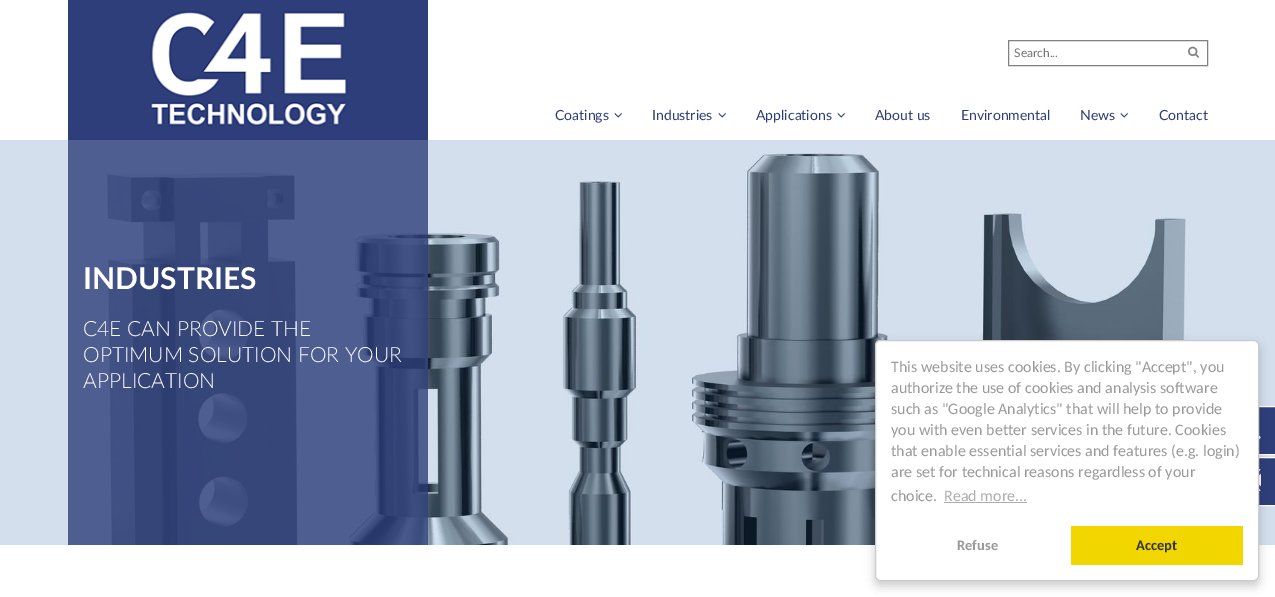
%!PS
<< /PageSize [1275 597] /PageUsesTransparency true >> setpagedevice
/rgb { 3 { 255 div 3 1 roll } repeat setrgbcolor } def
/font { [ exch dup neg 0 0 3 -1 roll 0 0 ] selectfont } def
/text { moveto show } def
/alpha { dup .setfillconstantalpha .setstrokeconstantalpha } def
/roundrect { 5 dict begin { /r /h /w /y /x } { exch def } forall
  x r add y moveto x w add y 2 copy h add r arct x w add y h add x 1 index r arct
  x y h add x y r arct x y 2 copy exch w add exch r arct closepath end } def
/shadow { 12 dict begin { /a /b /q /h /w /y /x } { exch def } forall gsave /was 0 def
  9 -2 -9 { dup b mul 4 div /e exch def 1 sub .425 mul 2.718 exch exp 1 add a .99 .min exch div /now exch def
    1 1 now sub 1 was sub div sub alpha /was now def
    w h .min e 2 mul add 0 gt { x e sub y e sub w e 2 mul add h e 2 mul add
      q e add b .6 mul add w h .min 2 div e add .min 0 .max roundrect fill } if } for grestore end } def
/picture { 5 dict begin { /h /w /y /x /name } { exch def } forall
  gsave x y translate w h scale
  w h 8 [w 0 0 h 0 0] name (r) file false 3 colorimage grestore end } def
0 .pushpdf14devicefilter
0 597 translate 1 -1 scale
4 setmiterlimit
255 255 255 rgb
0 0 1275 597 rectfill
46 62 122 rgb
68 0 360 140 rectfill
(img_01.rgb) 150 11 198 116 picture
129 129 129 rgb
1008.5 40.5 199 25 rectstroke
(img_02.rgb) 1188 46 12 12 picture
(img_03.rgb) 614 112 8 6 picture
(img_03.rgb) 718 112 8 6 picture
(img_03.rgb) 837 112 8 6 picture
(img_03.rgb) 1120 112 8 6 picture
(img_04.rgb) 0 140 1275 405 picture
0.8 alpha
46 62 122 rgb
68 140 360 405 rectfill
1 alpha
1259 407 16 47 rectfill
255 255 255 rgb
1224.5 406.5 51 48 rectstroke
(img_05.rgb) 1259 435 2 5 picture
46 62 122 rgb
1259 458 16 47 rectfill
255 255 255 rgb
1224.5 457.5 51 48 rectstroke
(img_06.rgb) 1259 469 2 22 picture
0 0 0 rgb
875 345 384 241 5 5 0.2 shadow
255 255 255 rgb
875.5 340.5 383 240 4.5 roundrect gsave fill grestore
204 204 204 rgb
stroke
173 173 173 rgb
944 502 83 1 rectfill
241 214 0 rgb
1071 526 172 39 rectfill
/Lato-Regular 12 font
117 117 117 rgb
(Search...) 1014 57 text
/Lato-Regular 14 font
46 62 122 rgb
(Coatings) 555 120 text
(Industries) 652 120 text
(Applications) 756 120 text
(About us) 875 120 text
(Environmental) 961 120 text
(News) 1080 120 text
(Contact) 1159 120 text
/Lato-Bold 30 font
255 255 255 rgb
(INDUSTRIES) 83 289 text
/Lato-Light 21 font
(C4E CAN PROVIDE THE) 83 336 text
(OPTIMUM SOLUTION FOR YOUR) 83 362 text
(APPLICATION) 83 388 text
/Carlito-Regular 16 font
153 153 153 rgb
(This website uses cookies. By clicking "Accept", you) 891 372 text
(authorize the use of cookies and analysis software) 891 393 text
(such as "Google Analytics" that will help to provide) 891 414 text
(you with even better services in the future. Cookies) 891 435 text
(that enable essential services and features \(e.g. login\)) 891 456 text
(are set for technical reasons regardless of your) 891 477 text
(choice.) 891 501 text
173 173 173 rgb
(Read more...) 944 501 text
/Carlito-Bold 14.5 font
153 153 153 rgb
(Refuse) 957 550 text
51 51 51 rgb
(Accept) 1136 550 text
.poppdf14devicefilter showpage
